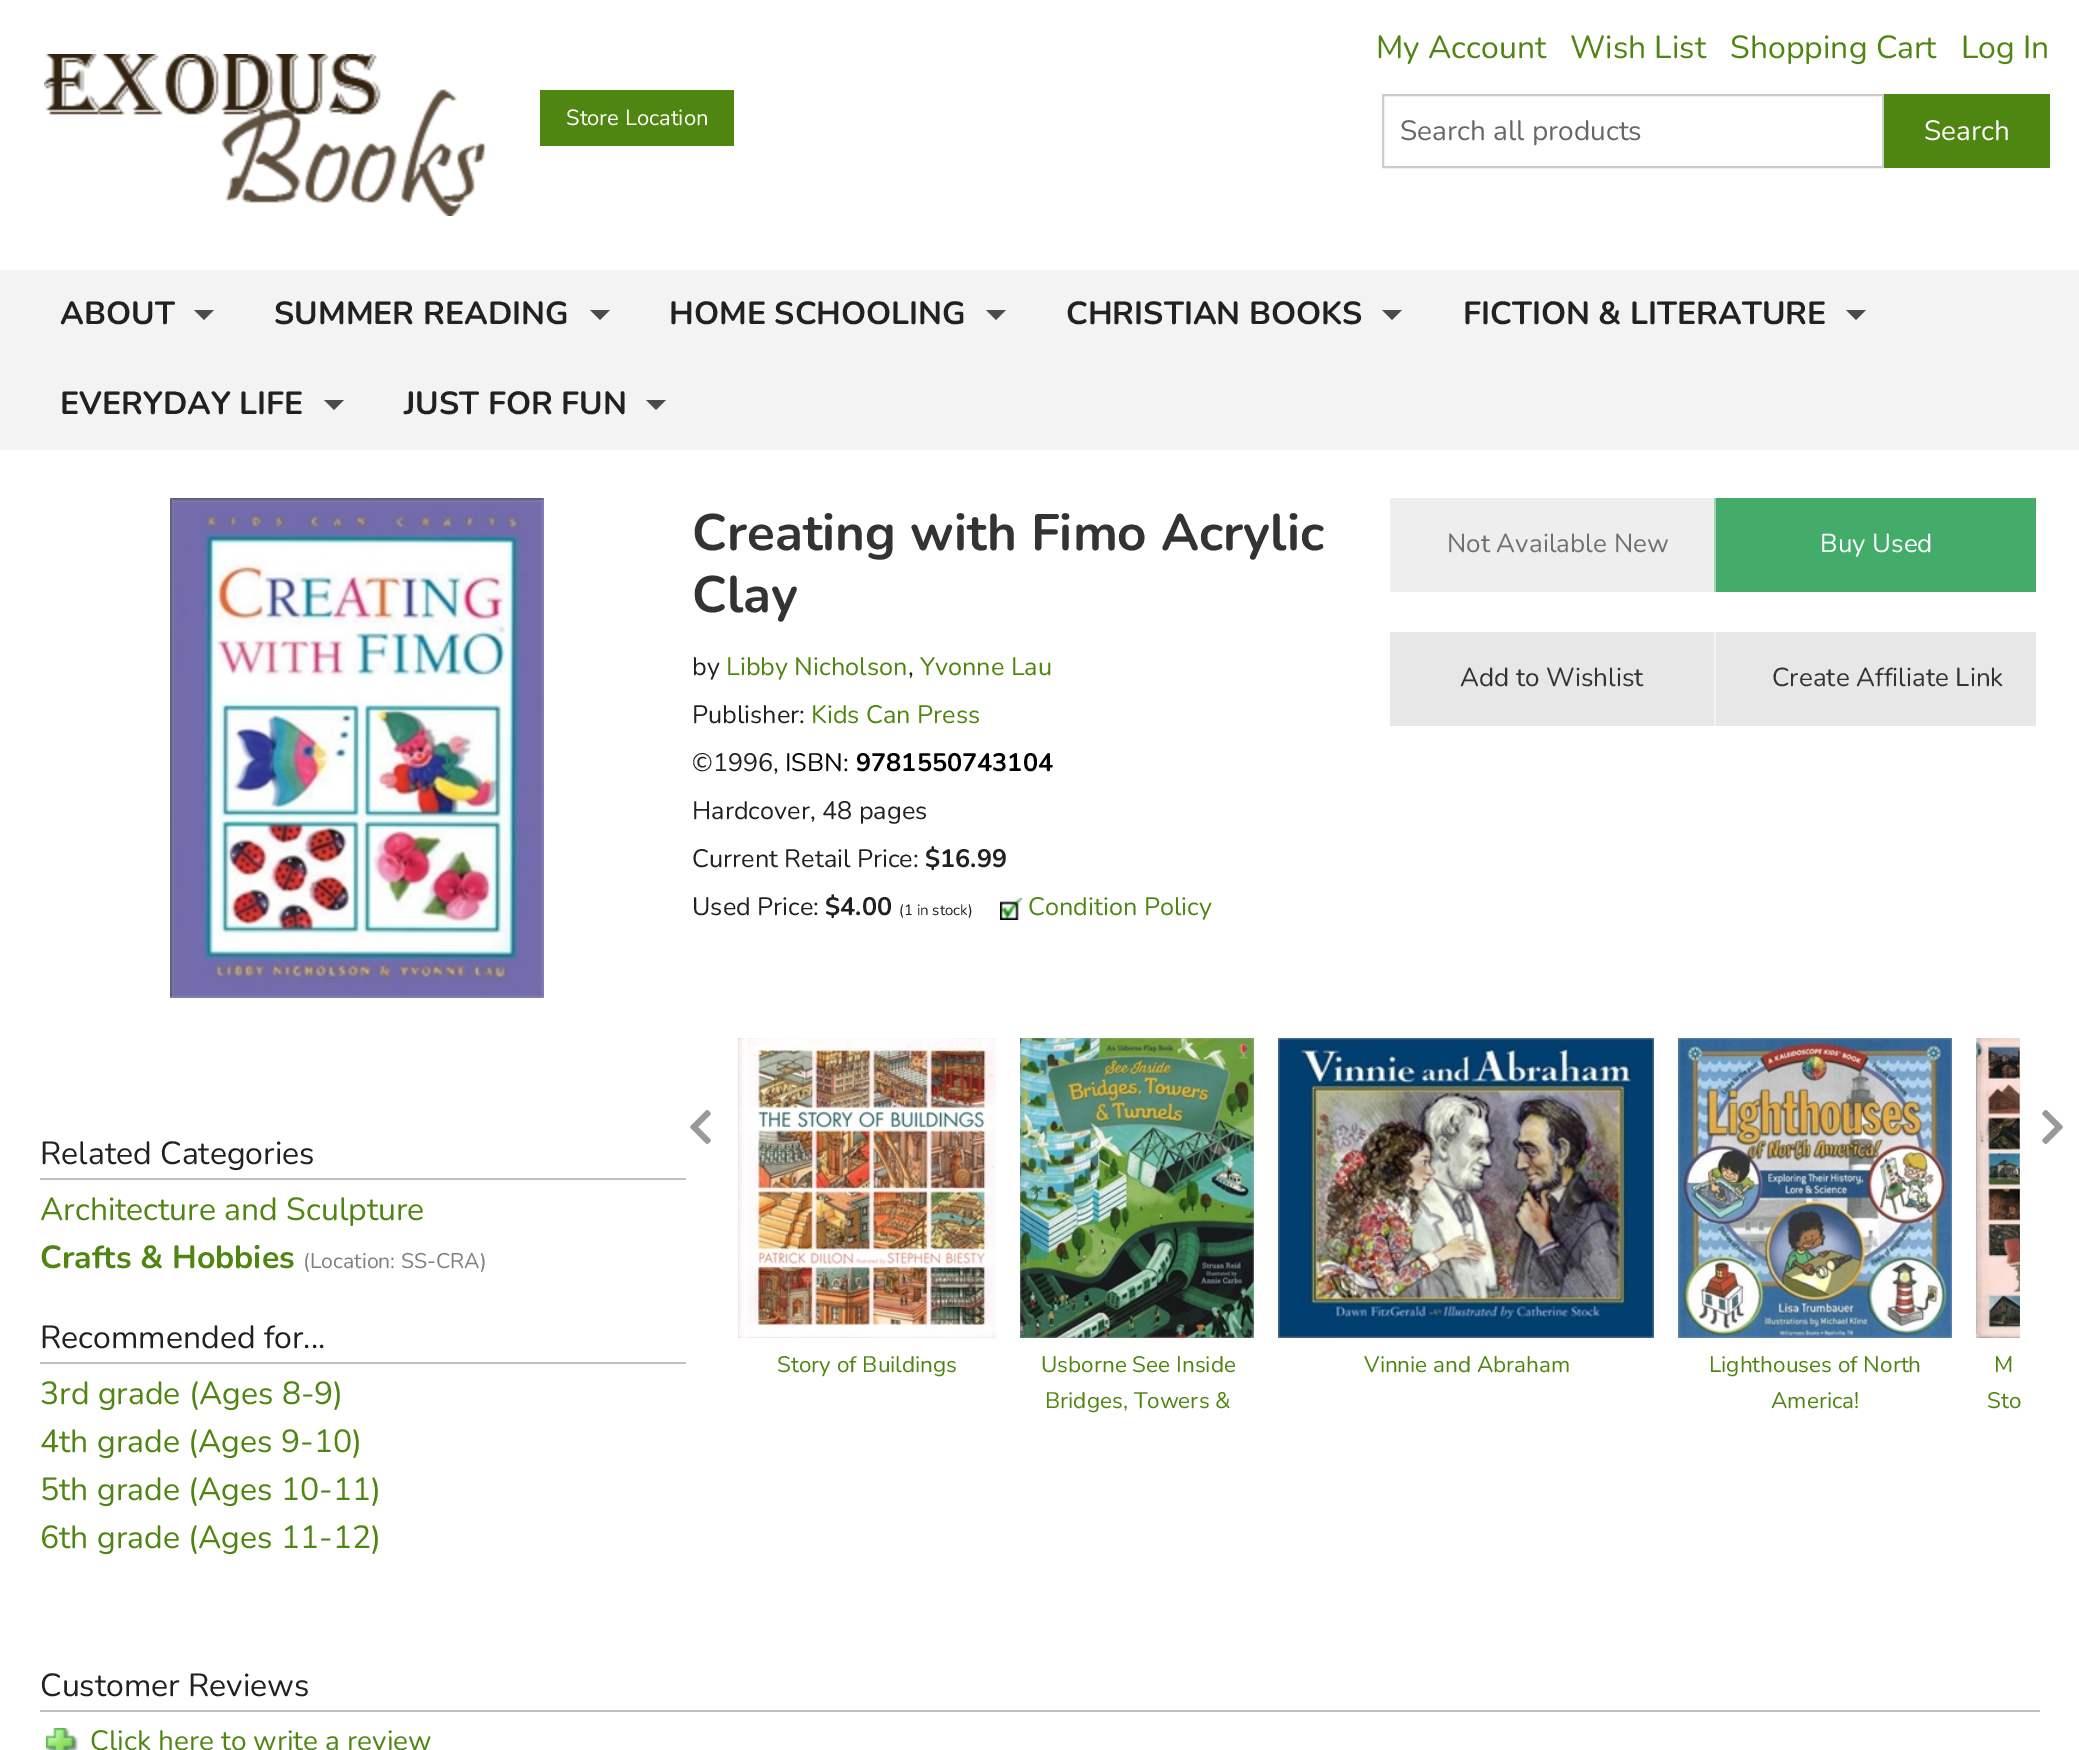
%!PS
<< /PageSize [2079 1750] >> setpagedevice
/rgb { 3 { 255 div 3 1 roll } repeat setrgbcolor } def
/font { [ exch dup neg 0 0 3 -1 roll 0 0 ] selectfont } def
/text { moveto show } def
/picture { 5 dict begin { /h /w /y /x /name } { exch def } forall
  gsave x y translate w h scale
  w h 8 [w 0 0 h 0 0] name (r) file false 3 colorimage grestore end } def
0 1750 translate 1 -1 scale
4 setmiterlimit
255 255 255 rgb
0 0 2079 1750 rectfill
(img_01.rgb) 44 54 442 162 picture
79 133 17 rgb
540 90 194 56 rectfill
204 204 204 rgb
2 setlinewidth
1383 95 500 72 rectstroke
79 133 17 rgb
1884 94 166 74 rectfill
243 243 243 rgb
0 270 2079 180 rectfill
75 75 75 rgb
194 310 moveto 20 0 rlineto -10 10 rlineto closepath fill
590 310 moveto 20 0 rlineto -10 10 rlineto closepath fill
986 310 moveto 20 0 rlineto -10 10 rlineto closepath fill
1382 310 moveto 20 0 rlineto -10 10 rlineto closepath fill
1846 310 moveto 20 0 rlineto -10 10 rlineto closepath fill
324 400 moveto 20 0 rlineto -10 10 rlineto closepath fill
646 400 moveto 20 0 rlineto -10 10 rlineto closepath fill
(img_02.rgb) 170 498 374 500 picture
(img_03.rgb) 1000 898 22 22 picture
238 238 238 rgb
1390 498 324 94 rectfill
67 172 106 rgb
1716 498 320 94 rectfill
161 214 181 rgb
1714 498 2 94 rectfill
231 231 231 rgb
1390 632 324 94 rectfill
1716 632 320 94 rectfill
243 243 243 rgb
1714 632 2 94 rectfill
192 192 192 rgb
40 1178 646 2 rectfill
40 1362 646 2 rectfill
(img_04.rgb) 690 1110 21 34 picture
(img_05.rgb) 2042 1110 21 34 picture
(img_06.rgb) 738 1038 258 300 picture
(img_07.rgb) 1020 1038 234 300 picture
(img_08.rgb) 1278 1038 376 300 picture
(img_09.rgb) 1678 1038 274 300 picture
(img_10.rgb) 1976 1038 44 300 picture
40 1710 2000 2 rectfill
(img_11.rgb) 46 1728 32 22 picture
/Nunito-Regular 32 font
79 133 17 rgb
(My Account) 1376 58 text
(Wish List) 1570 58 text
(Shopping Cart) 1730 58 text
(Log In) 1961 58 text
/Nunito-Regular 22 font
255 255 255 rgb
(Store Location) 566 125 text
/Nunito-Regular 28 font
102 102 102 rgb
(Search all products) 1400 140 text
255 255 255 rgb
(Search) 1924 140 text
/Nunito-Bold 32 font
33 33 33 rgb
(ABOUT) 60 324 text
(SUMMER READING) 274 324 text
(HOME SCHOOLING) 669 324 text
(CHRISTIAN BOOKS) 1066 324 text
(FICTION & LITERATURE) 1463 324 text
(EVERYDAY LIFE) 60 414 text
(JUST FOR FUN) 404 414 text
/Nunito-Bold 51.25 font
51 51 51 rgb
(Creating with Fimo Acrylic) 692 550 text
(Clay) 692 612 text
/Nunito-Regular 25.25 font
33 33 33 rgb
(by) 692 675 text
79 133 17 rgb
(Libby Nicholson) 726 675 text
33 33 33 rgb
(,) 908 675 text
79 133 17 rgb
(Yvonne Lau) 920 675 text
33 33 33 rgb
(Publisher:) 692 723 text
79 133 17 rgb
(Kids Can Press) 811 723 text
33 33 33 rgb
(©1996,) 692 771 text
0 0 0 rgb
(ISBN:) 785 771 text
/Nunito-Bold 25.25 font
(9781550743104) 856 771 text
/Nunito-Regular 25.25 font
33 33 33 rgb
(Hardcover, 48 pages) 692 819 text
(Current Retail Price:) 692 867 text
/Nunito-Bold 25.25 font
($16.99) 925 867 text
/Nunito-Regular 25.25 font
(Used Price:) 692 915 text
/Nunito-Bold 25.25 font
($4.00) 825 915 text
/Nunito-Regular 15 font
(\(1 in stock\)) 899 915 text
/Nunito-Regular 25.25 font
79 133 17 rgb
(Condition Policy) 1028 915 text
/Nunito-Regular 26 font
112 112 112 rgb
(Not Available New) 1447 552 text
255 255 255 rgb
(Buy Used) 1820 552 text
51 51 51 rgb
(Add to Wishlist) 1460 686 text
(Create Affiliate Link) 1772 686 text
/Nunito-Regular 32 font
33 33 33 rgb
(Related Categories) 40 1164 text
79 133 17 rgb
(Architecture and Sculpture) 40 1220 text
/Nunito-Bold 32 font
(Crafts & Hobbies) 40 1268 text
/Nunito-Regular 21.25 font
128 128 128 rgb
(\(Location: SS-CRA\)) 303 1268 text
/Nunito-Regular 32 font
33 33 33 rgb
(Recommended for...) 40 1348 text
79 133 17 rgb
(3rd grade \(Ages 8-9\)) 40 1404 text
(4th grade \(Ages 9-10\)) 40 1452 text
(5th grade \(Ages 10-11\)) 40 1500 text
(6th grade \(Ages 11-12\)) 40 1548 text
/Nunito-Regular 22.5 font
(Story of Buildings) 777 1372 text
(Usborne See Inside) 1041 1372 text
(Bridges, Towers &) 1045 1408 text
(Vinnie and Abraham) 1364 1372 text
(Lighthouses of North) 1709 1372 text
(America!) 1771 1408 text
(M) 1994 1372 text
(Sto) 1987 1408 text
/Nunito-Regular 32 font
33 33 33 rgb
(Customer Reviews) 40 1696 text
/Nunito-Regular 28 font
79 133 17 rgb
(Click here to write a review) 90 1750 text
showpage
